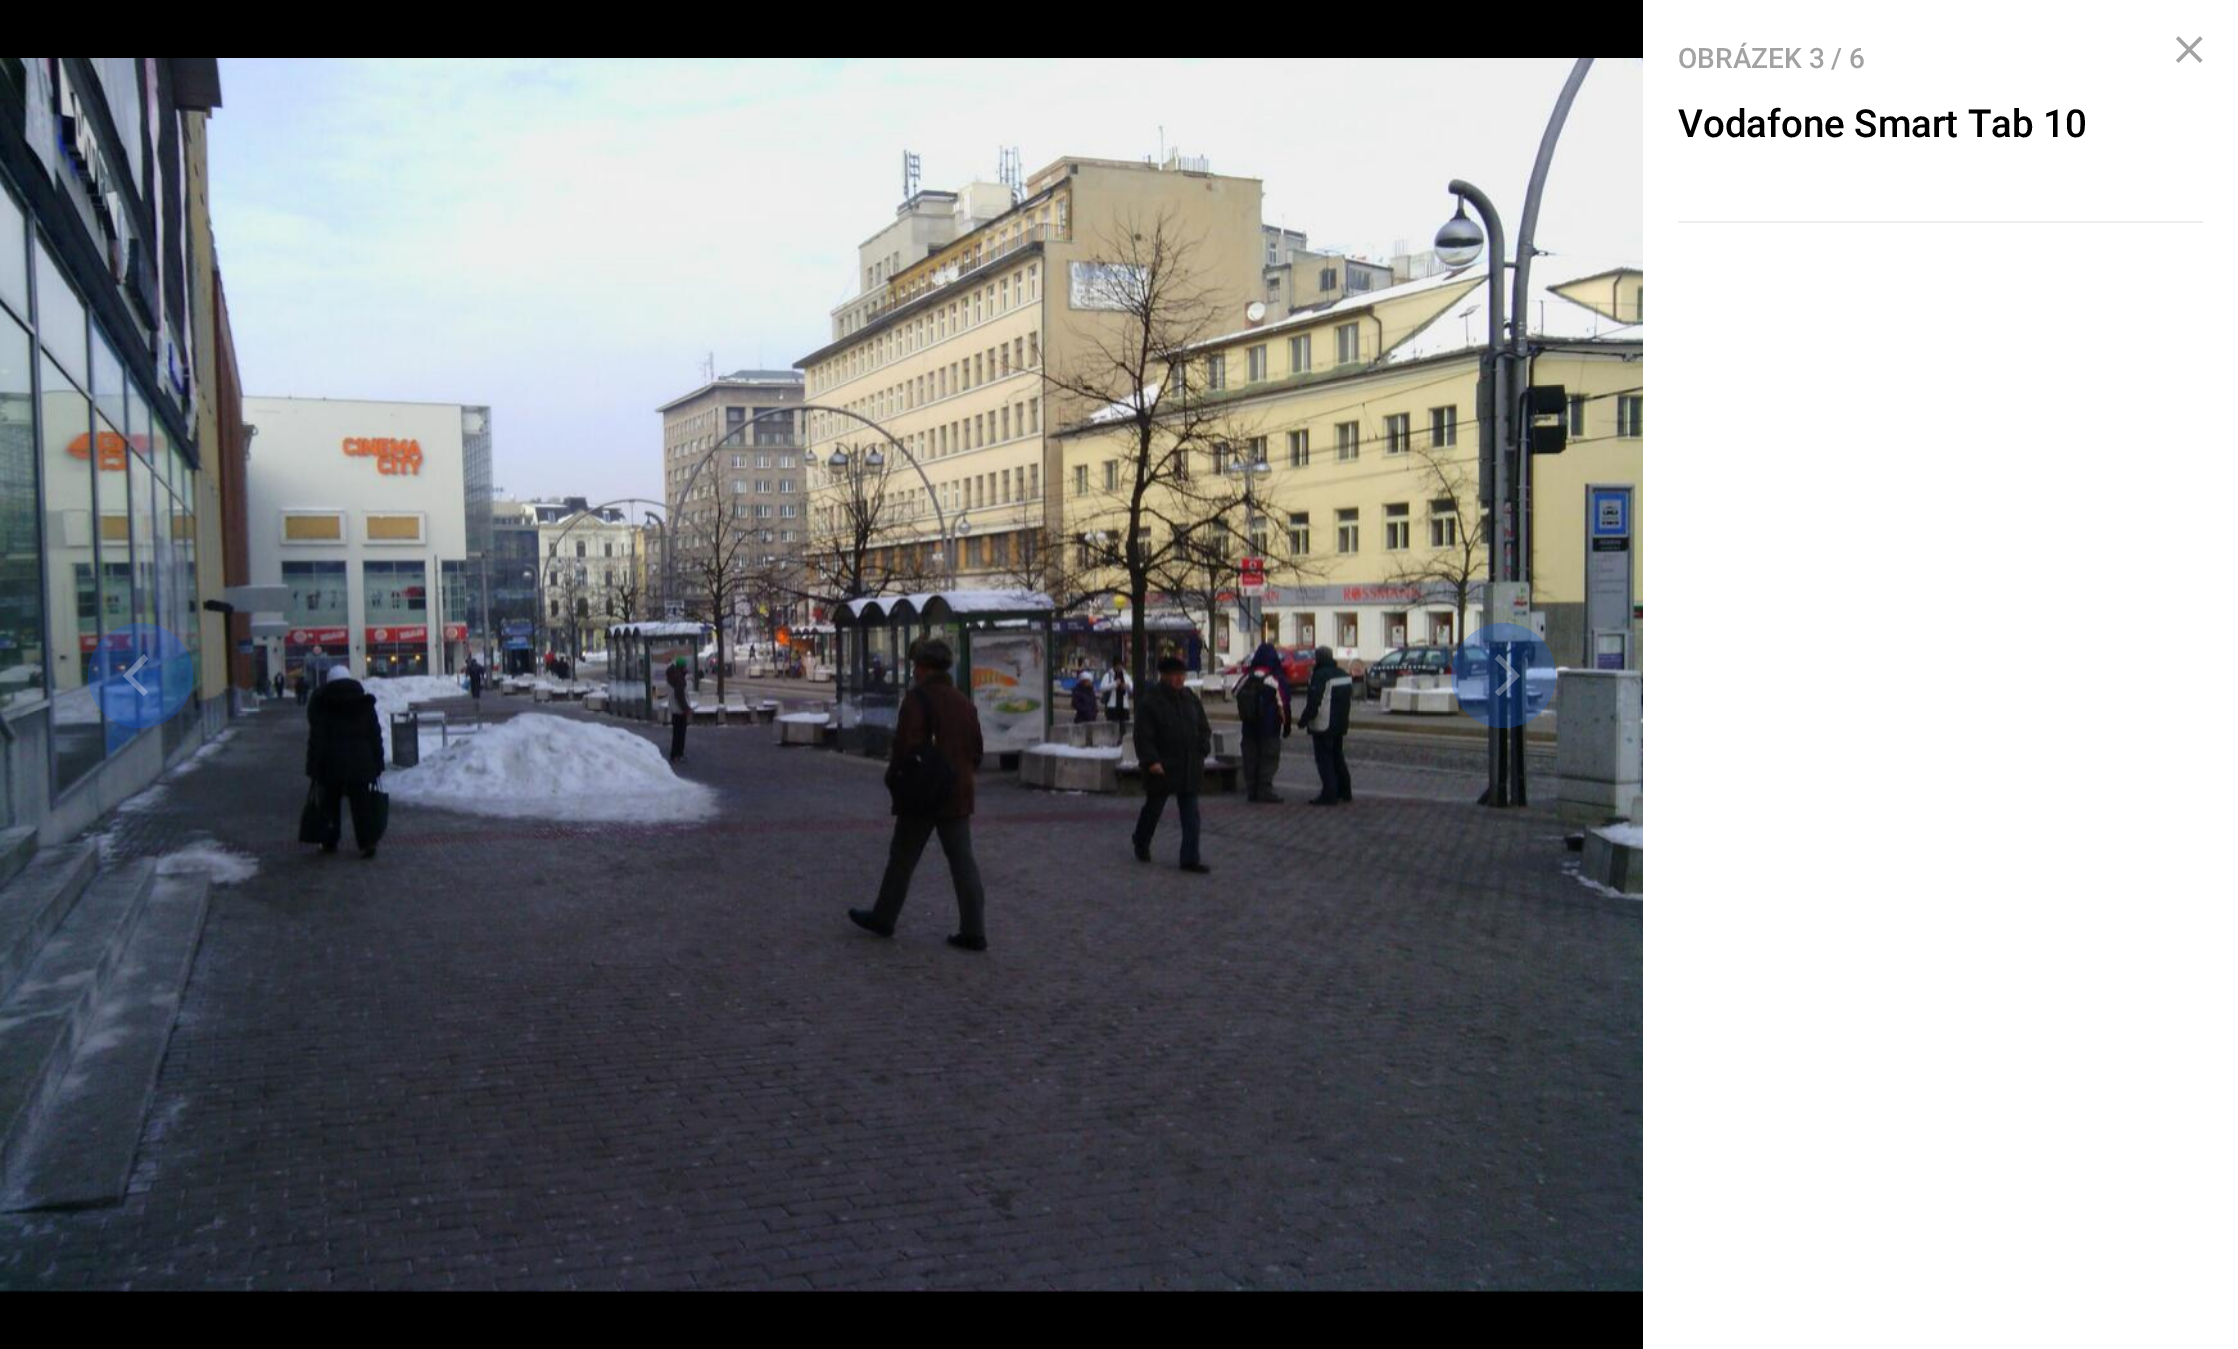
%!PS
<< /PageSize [2238 1349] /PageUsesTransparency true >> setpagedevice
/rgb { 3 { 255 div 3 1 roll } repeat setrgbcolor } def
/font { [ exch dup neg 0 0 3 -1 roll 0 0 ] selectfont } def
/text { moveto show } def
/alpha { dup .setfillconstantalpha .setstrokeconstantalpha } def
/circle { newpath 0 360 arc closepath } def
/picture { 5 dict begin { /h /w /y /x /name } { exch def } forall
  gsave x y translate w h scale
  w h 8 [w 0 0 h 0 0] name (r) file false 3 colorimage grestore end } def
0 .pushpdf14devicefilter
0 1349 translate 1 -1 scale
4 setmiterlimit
0 0 0 rgb
0 0 2238 1349 rectfill
(img_01.rgb) 0 58 1643 1234 picture
0.3 alpha
15 88 217 rgb
140.5 675.5 52.5 circle fill
255 255 255 rgb
123 676 moveto 21 20 rlineto 4 -4 rlineto -16 -16 rlineto 16 -17 rlineto -4 -5 rlineto closepath fill
15 88 217 rgb
1503.5 675.5 52.5 circle fill
255 255 255 rgb
1520 676 moveto -21 -22 rlineto -4 5 rlineto 17 17 rlineto -17 16 rlineto 4 4 rlineto closepath fill
1 alpha
1643 0 595 1349 rectfill
238 238 238 rgb
1678 221 525 2 rectfill
(img_02.rgb) 2176 36 27 27 picture
/Roboto-Medium 28 font
162 162 162 rgb
(OBRÁZEK 3 / 6) 1678 68 text
/Roboto-Medium 38.5 font
0 0 0 rgb
(Vodafone Smart Tab 10) 1678 137 text
.poppdf14devicefilter showpage
